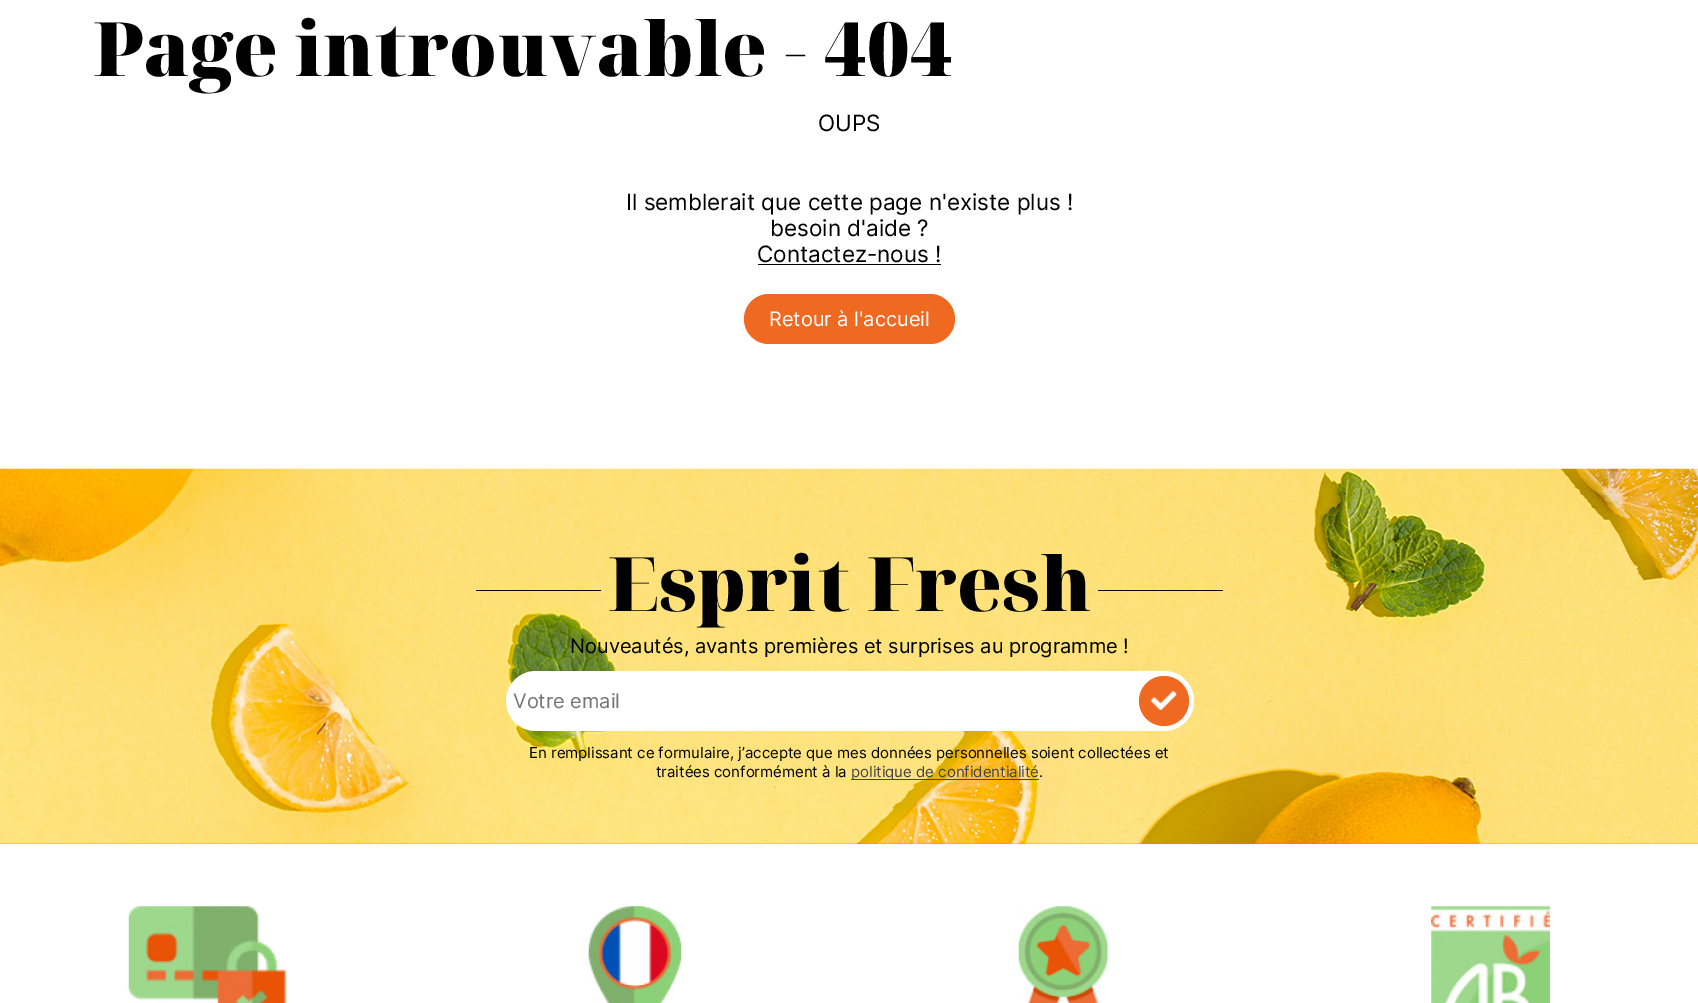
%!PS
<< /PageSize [1698 1003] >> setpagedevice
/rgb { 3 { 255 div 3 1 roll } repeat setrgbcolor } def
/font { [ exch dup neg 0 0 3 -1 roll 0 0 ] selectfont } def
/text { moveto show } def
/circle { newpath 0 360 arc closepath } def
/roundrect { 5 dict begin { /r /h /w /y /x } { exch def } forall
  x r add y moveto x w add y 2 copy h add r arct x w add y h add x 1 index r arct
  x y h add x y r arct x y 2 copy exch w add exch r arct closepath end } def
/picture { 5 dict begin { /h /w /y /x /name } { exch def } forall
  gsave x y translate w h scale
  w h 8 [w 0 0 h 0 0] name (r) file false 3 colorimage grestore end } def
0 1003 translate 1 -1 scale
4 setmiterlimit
255 255 255 rgb
0 0 1698 1003 rectfill
0 0 0 rgb
758 264 183 1 rectfill
239 105 32 rgb
744 294 211 50 25 roundrect fill
(img_01.rgb) 0 468 1698 376 picture
0 0 0 rgb
476 590 125 1 rectfill
1098 590 125 1 rectfill
255 255 255 rgb
506 671 688 60 30 roundrect fill
239 105 32 rgb
1164 701 25 circle fill
(img_02.rgb) 1151 691 26 19 picture
68 68 68 rgb
851 779 188 1 rectfill
(img_03.rgb) 128 906 159 97 picture
(img_04.rgb) 588 906 94 97 picture
(img_05.rgb) 1018 906 90 97 picture
(img_06.rgb) 1431 906 119 97 picture
/NotoSerifDisplay-Black 75 font
0 0 0 rgb
(Page introuvable - 404) 93 76 text
/Inter-Regular 22.5 font
(OUPS) 818 131 text
(Il semblerait que cette page n'existe plus !) 626 210 text
(besoin d'aide ?) 770 236 text
(Contactez-nous !) 757 262 text
/Inter-Regular 20 font
255 255 255 rgb
(Retour à l'accueil) 769 326 text
/NotoSerifDisplay-Black 75 font
0 0 0 rgb
(Esprit Fresh) 608 611 text
/Inter-Regular 20 font
(Nouveautés, avants premières et surprises au programme !) 570 653 text
117 117 117 rgb
(Votre email) 513 708 text
/Inter-Regular 15 font
0 0 0 rgb
(En remplissant ce formulaire, j’accepte que mes données personnelles soient collectées et) 529 758 text
(traitées conformément à la) 656 777 text
68 68 68 rgb
(politique de confidentialité) 851 777 text
0 0 0 rgb
(.) 1039 777 text
showpage
